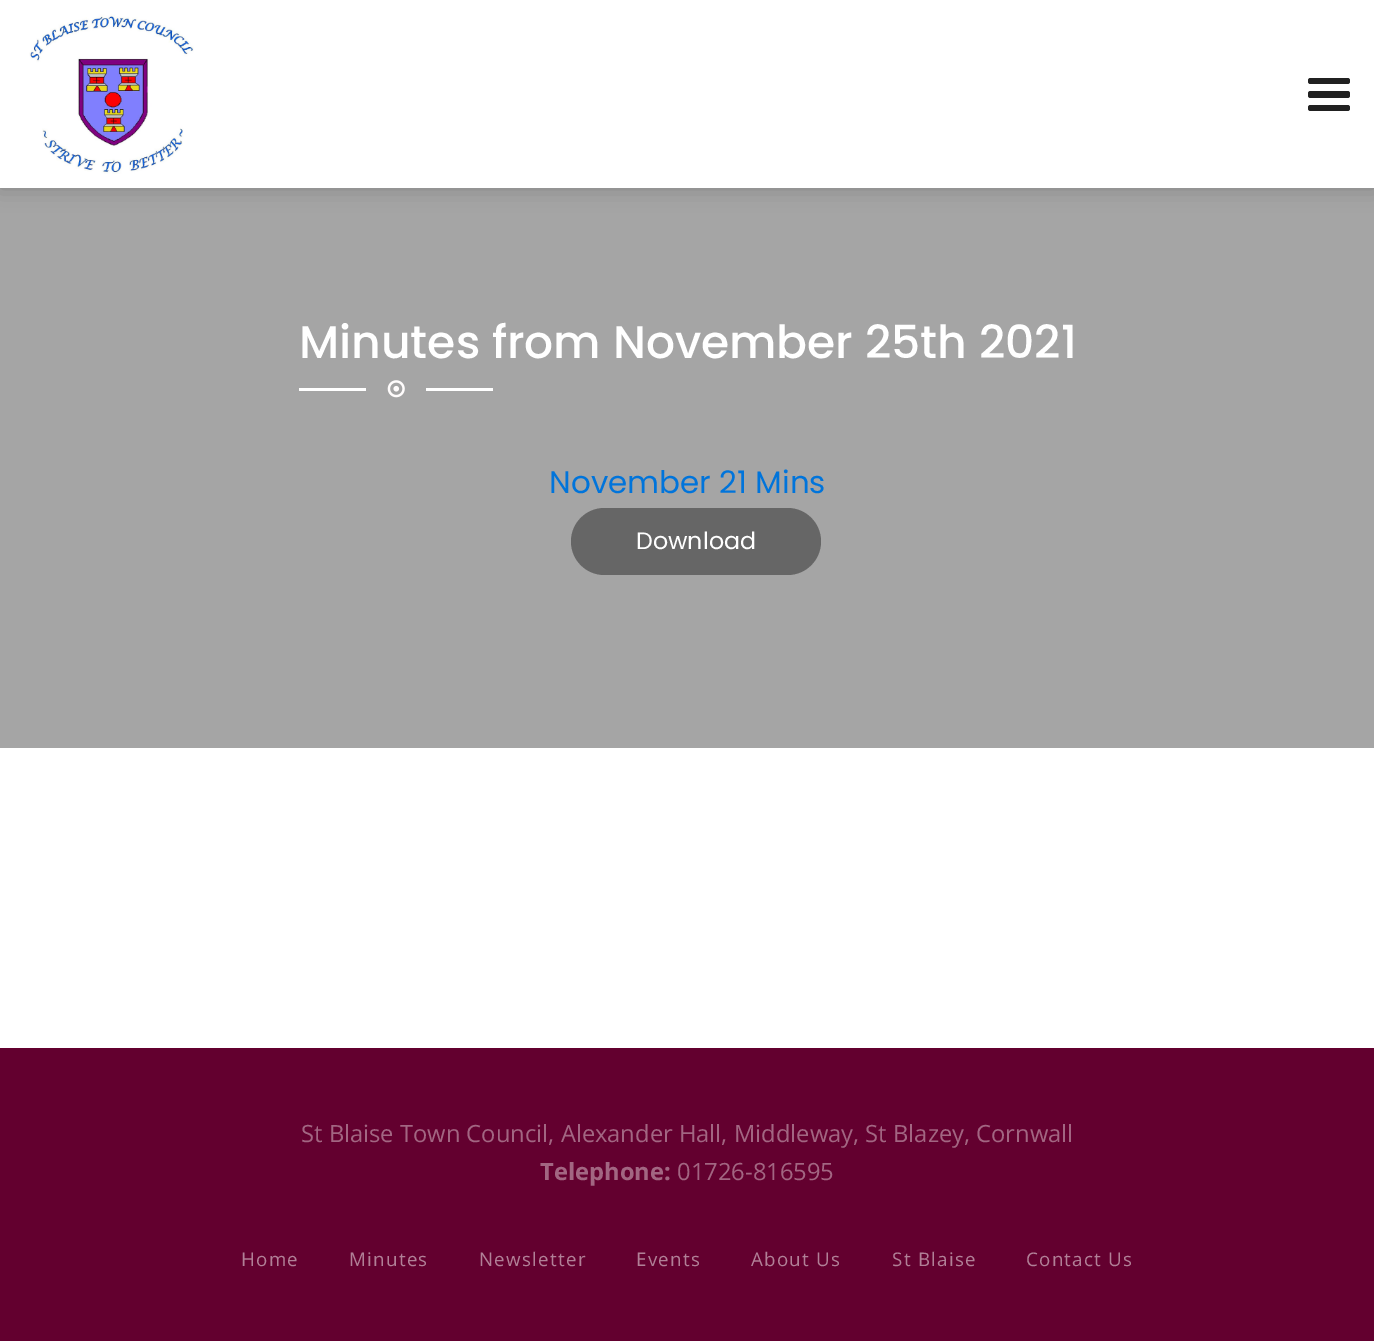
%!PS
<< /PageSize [1374 1341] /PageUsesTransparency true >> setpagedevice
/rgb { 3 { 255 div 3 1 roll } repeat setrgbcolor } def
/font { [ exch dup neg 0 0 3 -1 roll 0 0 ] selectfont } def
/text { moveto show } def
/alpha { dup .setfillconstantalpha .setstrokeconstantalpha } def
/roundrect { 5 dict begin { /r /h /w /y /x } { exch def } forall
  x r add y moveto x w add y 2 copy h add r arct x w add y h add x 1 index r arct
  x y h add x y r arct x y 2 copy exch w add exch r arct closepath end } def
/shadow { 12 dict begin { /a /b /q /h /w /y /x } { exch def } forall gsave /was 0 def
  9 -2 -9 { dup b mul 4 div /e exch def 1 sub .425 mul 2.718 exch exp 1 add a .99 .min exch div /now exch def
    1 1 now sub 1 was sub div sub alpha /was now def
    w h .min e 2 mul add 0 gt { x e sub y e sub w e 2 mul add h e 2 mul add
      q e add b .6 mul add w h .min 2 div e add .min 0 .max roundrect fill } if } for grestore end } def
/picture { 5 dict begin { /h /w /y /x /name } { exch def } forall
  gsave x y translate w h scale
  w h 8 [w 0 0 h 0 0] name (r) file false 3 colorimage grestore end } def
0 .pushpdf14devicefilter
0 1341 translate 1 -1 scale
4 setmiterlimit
255 255 255 rgb
0 0 1374 1341 rectfill
165 165 165 rgb
0 188 1374 560 rectfill
0 0 0 rgb
0 0 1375 188 0 11 0.22 shadow
255 255 255 rgb
0 0 1374 188 rectfill
(img_01.rgb) 29 14 165 160 picture
33 33 33 rgb
1308 78 42 6 2.5 roundrect fill
1308 91 42 7 2.5 roundrect fill
1308 105 42 6 2.5 roundrect fill
255 255 255 rgb
299 388 67 3 rectfill
(img_02.rgb) 387 380 18 18 picture
426 388 67 3 rectfill
102 102 102 rgb
571 508 250 67 33.5 roundrect fill
99 0 47 rgb
0 1048 1374 293 rectfill
/Poppins-Medium 45.6 font
255 255 255 rgb
(Minutes from November 25th 2021) 299 358 text
/Poppins-Regular 31 font
0 116 219 rgb
(November 21 Mins) 549 493 text
/Poppins-Regular 23.75 font
255 255 255 rgb
(Download) 636 549 text
/OpenSans-Regular 23.75 font
162 102 130 rgb
(St Blaise Town Council, Alexander Hall, Middleway, St Blazey, Cornwall) 301 1142 text
/OpenSans-Bold 23.75 font
(Telephone:) 540 1180 text
/OpenSans-Regular 23.75 font
(01726-816595) 677 1180 text
/OpenSans-Regular 18.75 font
177 128 151 rgb
241 1266 moveto 1.25 0 (Home) ashow
349 1266 moveto 1.25 0 (Minutes) ashow
479 1266 moveto 1.25 0 (Newsletter) ashow
636 1266 moveto 1.25 0 (Events) ashow
751 1266 moveto 1.25 0 (About Us) ashow
892 1266 moveto 1.25 0 (St Blaise) ashow
1026 1266 moveto 1.25 0 (Contact Us) ashow
.poppdf14devicefilter showpage
